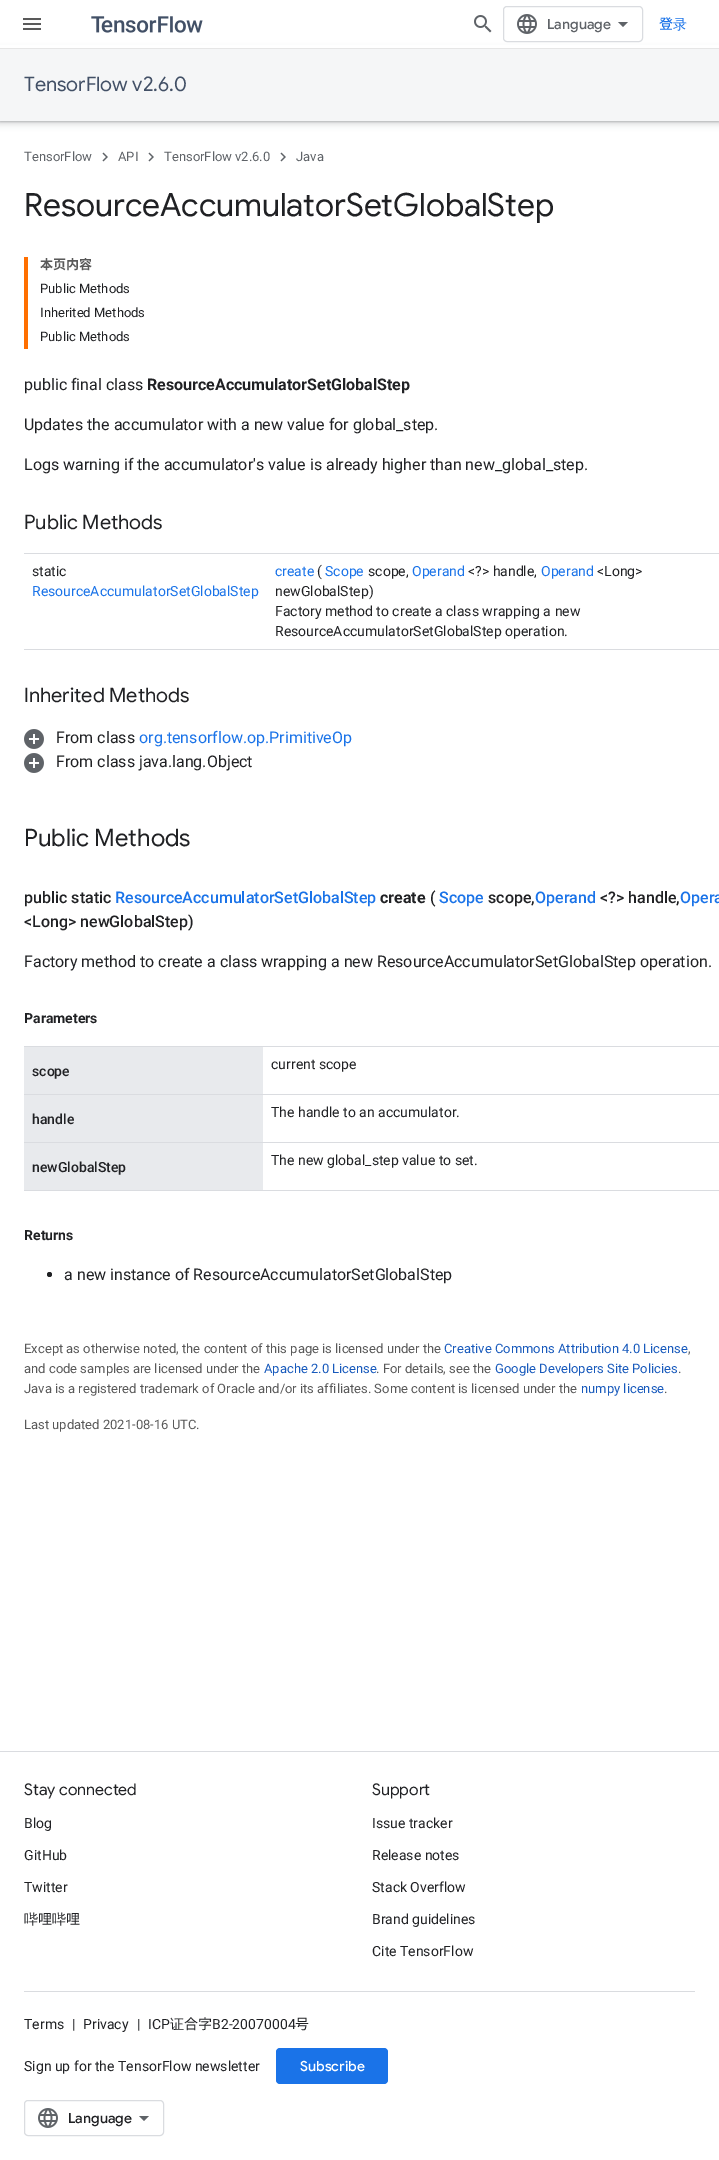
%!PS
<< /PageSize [719 2160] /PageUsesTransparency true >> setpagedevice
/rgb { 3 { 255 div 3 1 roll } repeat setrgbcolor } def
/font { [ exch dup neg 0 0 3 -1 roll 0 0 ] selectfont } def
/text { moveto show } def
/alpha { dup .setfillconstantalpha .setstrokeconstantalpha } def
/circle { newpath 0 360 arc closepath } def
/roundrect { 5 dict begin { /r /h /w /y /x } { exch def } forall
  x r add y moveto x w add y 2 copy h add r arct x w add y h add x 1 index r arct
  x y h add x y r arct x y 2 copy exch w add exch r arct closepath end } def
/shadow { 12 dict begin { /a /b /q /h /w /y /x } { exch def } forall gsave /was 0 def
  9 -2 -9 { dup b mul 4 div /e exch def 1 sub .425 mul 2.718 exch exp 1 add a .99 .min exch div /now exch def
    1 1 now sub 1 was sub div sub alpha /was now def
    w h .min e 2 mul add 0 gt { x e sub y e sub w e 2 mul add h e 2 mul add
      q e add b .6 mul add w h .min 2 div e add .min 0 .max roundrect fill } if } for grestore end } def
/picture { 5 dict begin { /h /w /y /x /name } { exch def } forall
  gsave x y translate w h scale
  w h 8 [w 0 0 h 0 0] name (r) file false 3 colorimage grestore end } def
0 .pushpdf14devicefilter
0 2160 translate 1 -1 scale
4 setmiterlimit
255 255 255 rgb
0 0 719 2160 rectfill
60 64 67 rgb
-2 49 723 76 0 3 0.15 shadow
0 50 719 72 0 1 0.3 shadow
255 255 255 rgb
0 45 719 3 rectfill
230 230 230 rgb
0 48 719 1 rectfill
(img_01.rgb) 23 18 18 12 picture
(img_02.rgb) 91 16 112 17 picture
(img_03.rgb) 474 15 18 18 picture
218 220 224 rgb
503.5 6.5 139 35 3.5 roundrect stroke
(img_04.rgb) 517 14 20 20 picture
95 99 104 rgb
623 27 moveto -5 -5 rlineto 10 0 rlineto closepath fill
245 246 247 rgb
0 49 719 72 rectfill
(img_05.rgb) 102 152 6 10 picture
(img_05.rgb) 148 152 6 10 picture
(img_05.rgb) 280 152 6 10 picture
255 111 0 rgb
24 257 4 92 rectfill
218 220 224 rgb
24 553 695 1 rectfill
24 649 695 1 rectfill
(img_06.rgb) 24 729 20 20 picture
(img_06.rgb) 24 753 20 20 picture
24 1046 695 1 rectfill
24 1094 695 1 rectfill
232 234 237 rgb
24 1047 239 47 rectfill
218 220 224 rgb
24 1142 695 1 rectfill
232 234 237 rgb
24 1095 239 47 rectfill
218 220 224 rgb
24 1190 695 1 rectfill
232 234 237 rgb
24 1143 239 47 rectfill
32 33 36 rgb
49.5 1274.5 2.5 circle fill
218 220 224 rgb
0 1751 719 1 rectfill
24 1991 671 1 rectfill
26 115 232 rgb
276 2048 112 36 4 roundrect fill
218 220 224 rgb
24.5 2100.5 139 35 3.5 roundrect stroke
(img_04.rgb) 38 2108 20 20 picture
95 99 104 rgb
144 2121 moveto -5 -5 rlineto 10 0 rlineto closepath fill
/GoogleSans-Medium 14 font
(Language) 547 29 text
/NotoSansJP-Medium 14 font
26 115 232 rgb
(登) 659 29 text
/WenQuanYiZenHei-Medium 14 font
(录) 673 29 text
/GoogleSans-Regular 20 font
66 80 102 rgb
(TensorFlow v2.6.0) 24 91 text
/Roboto-Regular 13 font
95 99 104 rgb
(TensorFlow) 24 161 text
(API) 118 161 text
(TensorFlow v2.6.0) 164 161 text
(Java) 296 161 text
/GoogleSans-Regular 32 font
32 33 36 rgb
(ResourceAccumulatorSetGlobalStep) 24 216 text
/NotoSansJP-Bold 13 font
89 89 89 rgb
(本页内容) 40 269 text
/Roboto-Regular 13 font
32 33 36 rgb
(Public Methods) 40 293 text
(Inherited Methods) 40 317 text
(Public Methods) 40 341 text
/Roboto-Regular 16 font
(public final class) 24 390 text
/Roboto-Bold 16 font
(ResourceAccumulatorSetGlobalStep) 147 390 text
/Roboto-Regular 16 font
(Updates the accumulator with a new value for global_step.) 24 430 text
(Logs warning if the accumulator's value is already higher than new_global_step.) 24 470 text
/GoogleSans-Regular 20 font
(Public Methods) 24 529 text
/Roboto-Regular 14 font
(static) 32 576 text
26 115 232 rgb
(ResourceAccumulatorSetGlobalStep) 32 596 text
(create) 275 576 text
32 33 36 rgb
(\() 317 576 text
26 115 232 rgb
(Scope) 325 576 text
32 33 36 rgb
(scope,) 368 576 text
26 115 232 rgb
(Operand) 412 576 text
32 33 36 rgb
(<?> handle,) 468 576 text
26 115 232 rgb
(Operand) 541 576 text
32 33 36 rgb
(<Long>) 597 576 text
(newGlobalStep\)) 275 596 text
(Factory method to create a class wrapping a new) 275 616 text
(ResourceAccumulatorSetGlobalStep operation.) 275 636 text
/GoogleSans-Regular 20 font
(Inherited Methods) 24 702 text
/Roboto-Regular 16 font
(From class) 56 743 text
26 115 232 rgb
(org.tensorflow.op.PrimitiveOp) 139 743 text
32 33 36 rgb
(From class java.lang.Object) 56 767 text
/GoogleSans-Regular 24 font
(Public Methods) 24 846 text
/Roboto-Medium 16 font
(public static) 24 903 text
26 115 232 rgb
(ResourceAccumulatorSetGlobalStep) 115 903 text
/Roboto-Bold 16 font
32 33 36 rgb
(create) 380 903 text
/Roboto-Medium 16 font
(\() 430 903 text
26 115 232 rgb
(Scope) 439 903 text
32 33 36 rgb
(scope,) 488 903 text
26 115 232 rgb
(Operand) 535 903 text
32 33 36 rgb
(<?> handle,) 600 903 text
26 115 232 rgb
(Opera) 680 903 text
32 33 36 rgb
(<Long> newGlobalStep\)) 24 927 text
/Roboto-Regular 16 font
(Factory method to create a class wrapping a new ResourceAccumulatorSetGlobalStep operation.) 24 967 text
/Roboto-Bold 14 font
(Parameters) 24 1023 text
/Roboto-Regular 14 font
(current scope) 271 1069 text
/Roboto-Medium 14 font
(scope) 32 1076 text
(handle) 32 1124 text
/Roboto-Regular 14 font
(The handle to an accumulator.) 271 1117 text
/Roboto-Medium 14 font
(newGlobalStep) 32 1172 text
/Roboto-Regular 14 font
(The new global_step value to set.) 271 1165 text
/Roboto-Bold 14 font
(Returns) 24 1240 text
/Roboto-Regular 16 font
(a new instance of ResourceAccumulatorSetGlobalStep) 64 1280 text
/Roboto-Regular 13 font
89 89 89 rgb
(Except as otherwise noted, the content of this page is licensed under the) 24 1353 text
24 90 188 rgb
(Creative Commons Attribution 4.0 License) 444 1353 text
89 89 89 rgb
(,) 688 1353 text
(and code samples are licensed under the) 24 1373 text
24 90 188 rgb
(Apache 2.0 License) 264 1373 text
89 89 89 rgb
(. For details, see the) 376 1373 text
24 90 188 rgb
(Google Developers Site Policies) 495 1373 text
89 89 89 rgb
(.) 678 1373 text
(Java is a registered trademark of Oracle and/or its affiliates. Some content is licensed under the) 24 1393 text
24 90 188 rgb
(numpy license) 581 1393 text
89 89 89 rgb
(.) 664 1393 text
(Last updated 2021-08-16 UTC.) 24 1429 text
/GoogleSans-Regular 16 font
32 33 36 rgb
(Stay connected) 24 1795 text
/Roboto-Regular 14 font
(Blog) 24 1828 text
(GitHub) 24 1860 text
(Twitter) 24 1892 text
/WenQuanYiZenHei-Medium 14 font
(哔) 24 1924 text
/NotoSansJP-Regular 14 font
(哩) 38 1924 text
/WenQuanYiZenHei-Medium 14 font
(哔) 52 1924 text
/NotoSansJP-Regular 14 font
(哩) 66 1924 text
/GoogleSans-Regular 16 font
(Support) 372 1795 text
/Roboto-Regular 14 font
(Issue tracker) 372 1828 text
(Release notes) 372 1860 text
(Stack Overflow) 372 1892 text
(Brand guidelines) 372 1924 text
(Cite TensorFlow) 372 1956 text
(Terms) 24 2029 text
(|) 72 2029 text
(Privacy) 83 2029 text
(|) 137 2029 text
(ICP) 148 2029 text
/WenQuanYiZenHei-Medium 14 font
(证) 170 2029 text
/NotoSansJP-Regular 14 font
(合字) 184 2029 text
/Roboto-Regular 14 font
(B2-20070004) 212 2029 text
/NotoSansJP-Regular 14 font
(号) 295 2029 text
/Roboto-Regular 14 font
(Sign up for the TensorFlow newsletter) 24 2071 text
/GoogleSans-Medium 14 font
255 255 255 rgb
(Subscribe) 300 2071 text
32 33 36 rgb
(Language) 68 2123 text
.poppdf14devicefilter showpage
